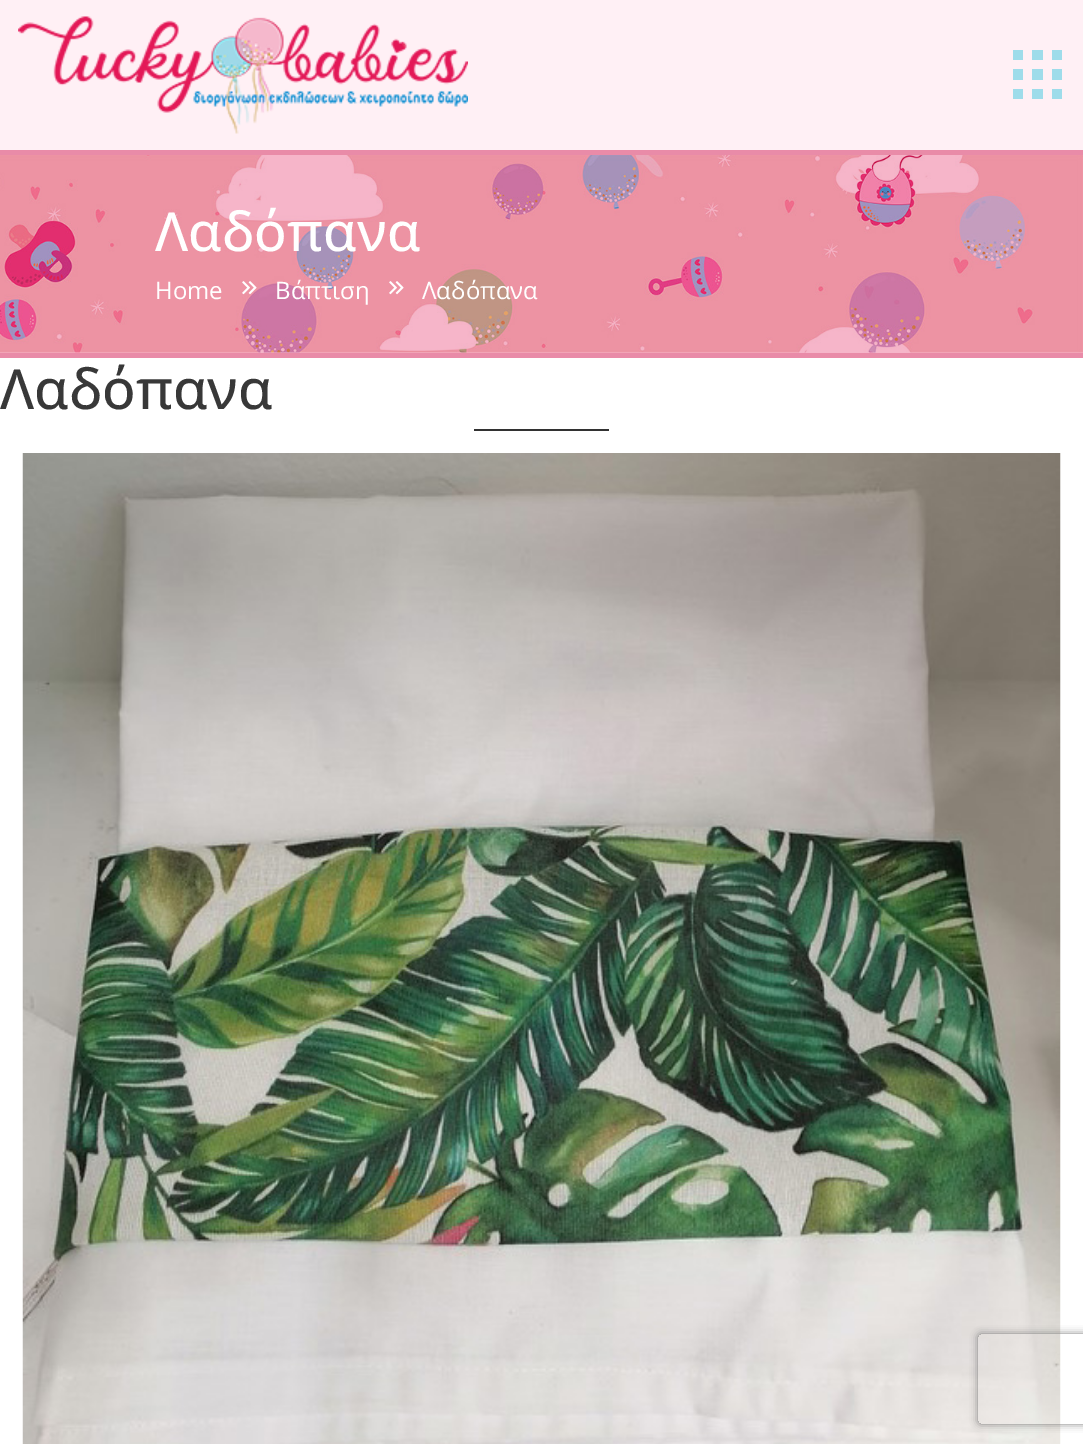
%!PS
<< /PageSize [1083 1444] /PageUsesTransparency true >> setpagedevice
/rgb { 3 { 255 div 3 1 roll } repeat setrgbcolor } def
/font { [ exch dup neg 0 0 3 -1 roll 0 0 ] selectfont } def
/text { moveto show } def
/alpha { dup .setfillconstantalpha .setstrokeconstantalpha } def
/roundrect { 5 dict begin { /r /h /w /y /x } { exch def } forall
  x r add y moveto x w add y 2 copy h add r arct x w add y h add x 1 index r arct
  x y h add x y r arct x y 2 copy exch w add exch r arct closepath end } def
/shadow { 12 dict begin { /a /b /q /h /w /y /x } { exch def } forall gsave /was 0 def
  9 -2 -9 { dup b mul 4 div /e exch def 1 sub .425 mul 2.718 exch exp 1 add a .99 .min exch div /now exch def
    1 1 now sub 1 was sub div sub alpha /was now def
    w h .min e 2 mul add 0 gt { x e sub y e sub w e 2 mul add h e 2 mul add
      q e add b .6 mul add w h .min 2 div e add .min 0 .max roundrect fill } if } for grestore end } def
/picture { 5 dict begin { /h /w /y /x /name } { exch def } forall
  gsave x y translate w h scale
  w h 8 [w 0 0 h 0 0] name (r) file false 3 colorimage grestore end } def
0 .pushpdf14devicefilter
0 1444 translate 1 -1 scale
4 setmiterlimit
255 255 255 rgb
0 0 1083 1444 rectfill
246 181 201 rgb
0 352 1083 1 rectfill
255 240 245 rgb
0 0 1083 150 rectfill
(img_01.rgb) 18 16 450 118 picture
158 220 234 rgb
1013 50 10 10 rectfill
1032 50 11 10 rectfill
1052 50 10 10 rectfill
1013 69 10 11 rectfill
1032 69 11 11 rectfill
1052 69 10 11 rectfill
1013 89 10 10 rectfill
1032 89 11 10 rectfill
1052 89 10 10 rectfill
(img_02.rgb) 0 155 1083 198 picture
233 139 168 rgb
0 150 1083 5 rectfill
0 353 1083 5 rectfill
(img_03.rgb) 242 281 15 14 picture
(img_04.rgb) 389 281 15 14 picture
50 50 50 rgb
474 429 135 2 rectfill
(img_05.rgb) 22 453 1039 991 picture
gsave
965 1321 moveto 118 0 rlineto 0 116 rlineto -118 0 rlineto closepath 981 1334 moveto 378 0 rlineto 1.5 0 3 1.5 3 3 rcurveto 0 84 rlineto 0 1.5 -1.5 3 -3 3 rcurveto -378 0 rlineto -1.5 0 -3 -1.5 -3 -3 rcurveto 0 -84 rlineto 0 -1.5 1.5 -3 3 -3 rcurveto closepath eoclip newpath
128 128 128 rgb
978 1334 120 90 3 4 1 shadow
grestore
/OpenSans-Medium 54 font
255 255 255 rgb
(Λαδόπανα) 155 251 text
/OpenSans-Regular 24 font
(Home) 155 299 text
(Βάπτιση) 275 299 text
(Λαδόπανα) 422 299 text
/OpenSans-Medium 55.5 font
56 56 56 rgb
(Λαδόπανα) 0 409 text
.poppdf14devicefilter showpage
